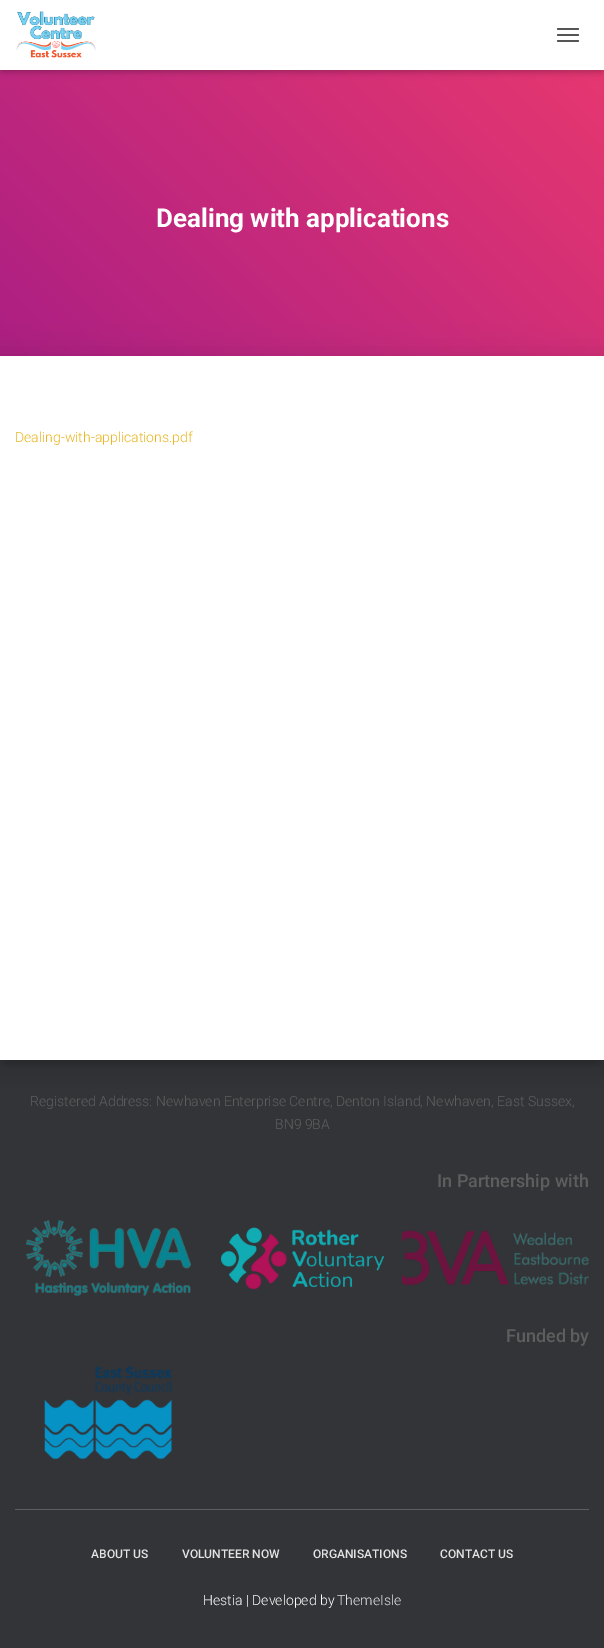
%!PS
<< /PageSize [604 1648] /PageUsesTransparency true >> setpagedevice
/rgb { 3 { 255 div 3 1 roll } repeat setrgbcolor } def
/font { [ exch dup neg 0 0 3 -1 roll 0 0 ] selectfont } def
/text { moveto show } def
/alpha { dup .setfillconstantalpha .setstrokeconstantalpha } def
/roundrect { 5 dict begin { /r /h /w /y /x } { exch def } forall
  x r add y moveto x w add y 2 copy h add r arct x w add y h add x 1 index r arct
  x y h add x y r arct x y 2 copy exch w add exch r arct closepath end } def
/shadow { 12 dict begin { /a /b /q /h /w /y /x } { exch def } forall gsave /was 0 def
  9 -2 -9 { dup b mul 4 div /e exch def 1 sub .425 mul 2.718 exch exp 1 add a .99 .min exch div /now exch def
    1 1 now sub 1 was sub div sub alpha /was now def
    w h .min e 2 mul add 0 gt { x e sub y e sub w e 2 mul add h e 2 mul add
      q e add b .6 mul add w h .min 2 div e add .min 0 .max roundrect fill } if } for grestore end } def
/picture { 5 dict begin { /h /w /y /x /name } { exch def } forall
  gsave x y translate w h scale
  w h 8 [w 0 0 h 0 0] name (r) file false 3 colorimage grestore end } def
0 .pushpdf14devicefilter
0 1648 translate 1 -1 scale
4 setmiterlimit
50 52 55 rgb
0 0 604 1648 rectfill
gsave 0 70 moveto 604 0 rlineto 0 286 rlineto -604 0 rlineto closepath clip newpath
<< /ShadingType 2 /ColorSpace /DeviceRGB /Coords [47 463 557 -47] /Extend [true true] /Function << /FunctionType 2 /Domain [0 1] /C0 [0.659 0.114 0.518] /C1 [0.918 0.224 0.435] /N 1 >> >> shfill grestore
0 0 0 rgb
2 6 600 66 0 2.5 0.1 shadow
0 1 604 70 0 5 0.12 shadow
6 7 592 58 0 5 0.42 shadow
255 255 255 rgb
0 0 604 70 rectfill
(img_01.rgb) 16 11 80 47 picture
85 85 85 rgb
557 28 22 2 1 roundrect fill
557 34 22 2 1 roundrect fill
557 40 22 2 1 roundrect fill
0 0 0 rgb
5 369 594 694 0 5 0.2 shadow
-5 357 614 714 0 15 0.12 shadow
255 255 255 rgb
0 356 604 704 rectfill
(img_02.rgb) 26 1220 165 76 picture
(img_03.rgb) 220 1227 164 63 picture
(img_04.rgb) 402 1230 187 56 picture
(img_05.rgb) 44 1366 128 94 picture
94 94 94 rgb
15 1509 574 1 rectfill
/Roboto-Bold 26 font
255 255 255 rgb
(Dealing with applications) 156 227 text
/Roboto-Light 14 font
234 180 30 rgb
(Dealing-with-applications.pdf) 15 442 text
94 94 94 rgb
(Registered Address: Newhaven Enterprise Centre, Denton Island, Newhaven, East Sussex,) 30 1106 text
(BN9 9BA) 275 1129 text
/Roboto-Medium 18 font
(In Partnership with) 437 1187 text
(Funded by) 506 1342 text
/Roboto-Medium 12 font
226 227 227 rgb
(ABOUT US) 91 1558 text
(VOLUNTEER NOW) 182 1558 text
(ORGANISATIONS) 313 1558 text
(CONTACT US) 440 1558 text
/Roboto-Light 14 font
255 255 255 rgb
(Hestia | Developed by) 203 1605 text
226 227 227 rgb
(ThemeIsle) 337 1605 text
.poppdf14devicefilter showpage
